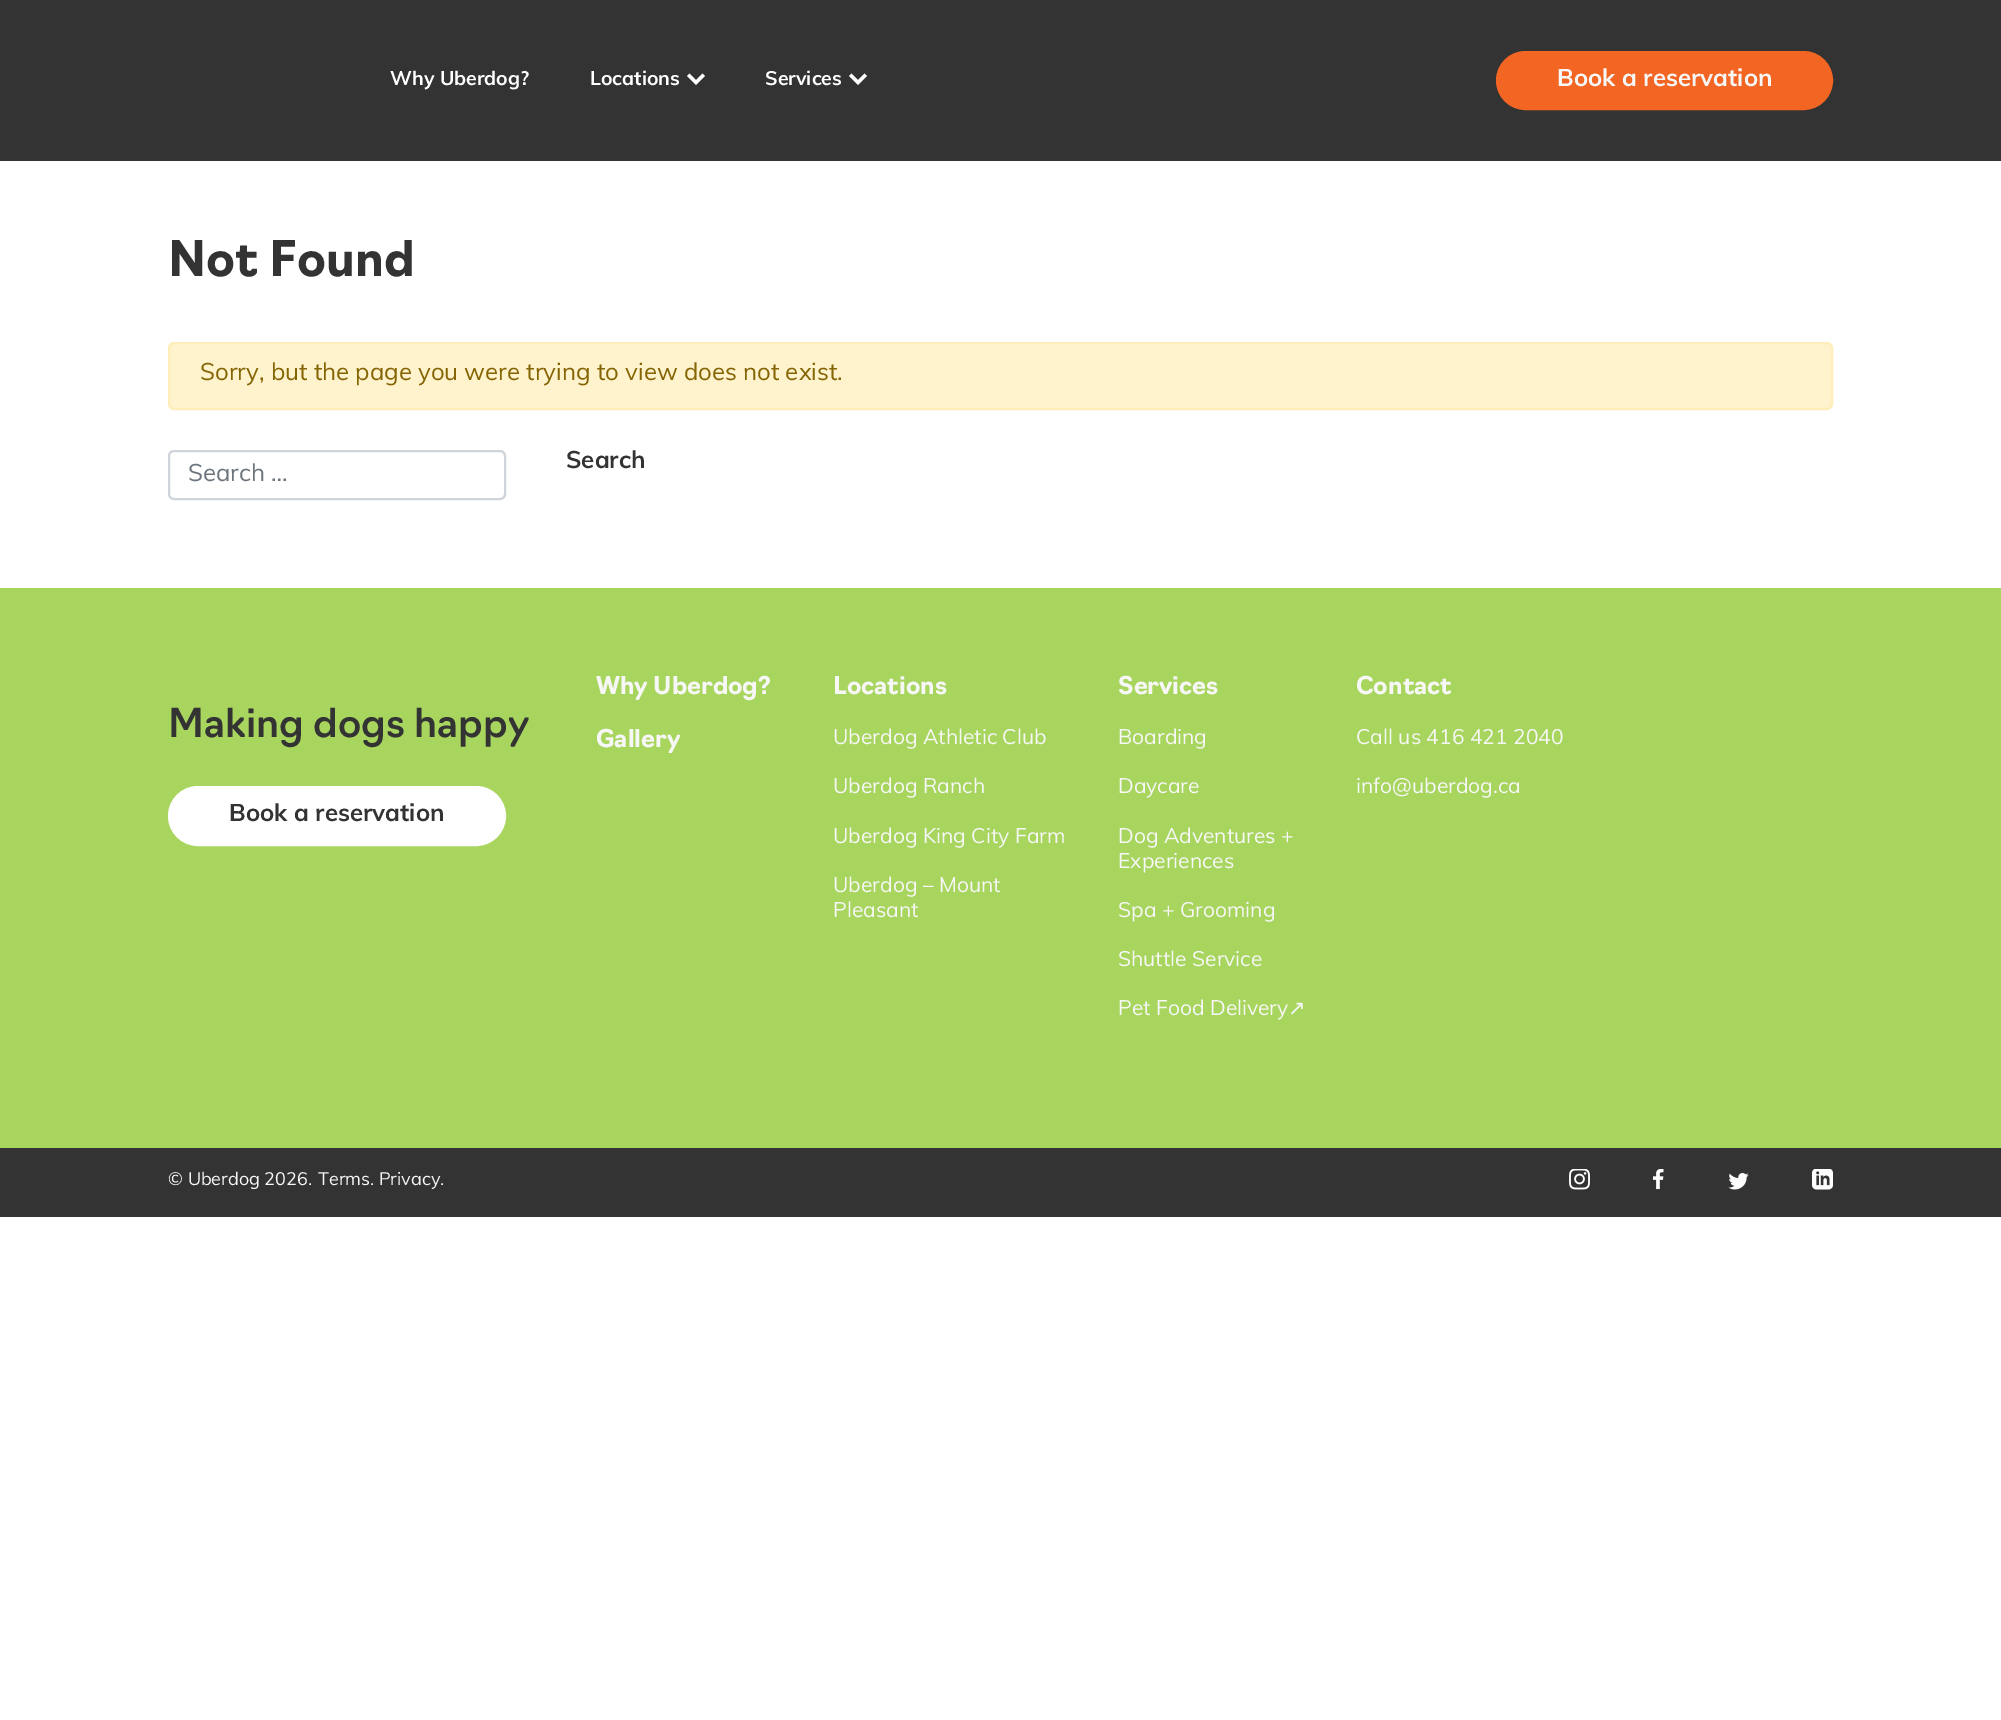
%!PS
<< /PageSize [2001 1720] >> setpagedevice
/rgb { 3 { 255 div 3 1 roll } repeat setrgbcolor } def
/font { [ exch dup neg 0 0 3 -1 roll 0 0 ] selectfont } def
/text { moveto show } def
/roundrect { 5 dict begin { /r /h /w /y /x } { exch def } forall
  x r add y moveto x w add y 2 copy h add r arct x w add y h add x 1 index r arct
  x y h add x y r arct x y 2 copy exch w add exch r arct closepath end } def
/picture { 5 dict begin { /h /w /y /x /name } { exch def } forall
  gsave x y translate w h scale
  w h 8 [w 0 0 h 0 0] name (r) file false 3 colorimage grestore end } def
0 1720 translate 1 -1 scale
4 setmiterlimit
255 255 255 rgb
0 0 2001 1720 rectfill
51 51 51 rgb
0 0 2001 161 rectfill
255 255 255 rgb
696 85 moveto -9 -9 rlineto 2.5 -2.5 rlineto 6.5 6.5 rlineto 6.5 -6.5 rlineto 2.5 2.5 rlineto closepath fill
858 85 moveto -9 -9 rlineto 2.5 -2.5 rlineto 6.5 6.5 rlineto 6.5 -6.5 rlineto 2.5 2.5 rlineto closepath fill
242 101 34 rgb
1497 52 335 57 28.5 roundrect gsave fill grestore
2 setlinewidth
stroke
255 243 205 rgb
169 343 1663 66 5 roundrect gsave fill grestore
255 238 186 rgb
stroke
206 212 218 rgb
169 451 336 48 5 roundrect stroke
168 213 94 rgb
0 588 2001 560 rectfill
255 255 255 rgb
169 787 336 58 29 roundrect gsave fill grestore
stroke
51 51 51 rgb
0 1148 2001 69 rectfill
(img_01.rgb) 1569 1169 21 21 picture
(img_02.rgb) 1653 1169 11 21 picture
(img_03.rgb) 1728 1173 21 17 picture
(img_04.rgb) 1812 1169 21 21 picture
/Muli-Bold 19.5 font
255 255 255 rgb
(Why Uberdog?) 390 85 text
(Locations) 590 85 text
(Services) 765 85 text
/Muli-Bold 24 font
247 247 247 rgb
(Book a reservation) 1557 86 text
/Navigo-Bold 48 font
51 51 51 rgb
(Not Found) 168 276 text
/Muli-Regular 24 font
133 100 4 rgb
(Sorry, but the page you were trying to view does not exist.) 200 380 text
/Muli-Bold 24 font
51 51 51 rgb
(Search) 566 468 text
/Muli-Regular 24 font
108 117 125 rgb
(Search …) 188 481 text
/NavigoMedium-Medium 39 font
51 51 51 rgb
(Making dogs happy) 168 737 text
/Muli-Bold 24 font
(Book a reservation) 229 821 text
/Navigo-Bold 24 font
247 247 247 rgb
(Why Uberdog?) 596 694 text
(Gallery) 596 747 text
(Locations) 833 694 text
/Muli-Regular 21 font
(Uberdog Athletic Club) 833 744 text
(Uberdog Ranch) 833 793 text
(Uberdog King City Farm) 833 843 text
(Uberdog – Mount) 833 892 text
(Pleasant) 833 917 text
/Navigo-Bold 24 font
(Services) 1118 694 text
/Muli-Regular 21 font
(Boarding) 1118 744 text
(Daycare) 1118 793 text
(Dog Adventures +) 1118 843 text
(Experiences) 1118 868 text
(Spa + Grooming) 1118 917 text
(Shuttle Service) 1118 966 text
(Pet Food Delivery) 1118 1015 text
/DejaVuSans-Regular 21 font
(↗) 1288 1015 text
/Navigo-Bold 24 font
(Contact) 1356 694 text
/Muli-Regular 21 font
(Call us 416 421 2040) 1356 744 text
(info@uberdog.ca) 1356 793 text
/Muli-Regular 18 font
(© Uberdog 2026.) 168 1185 text
(Terms. Privacy.) 318 1185 text
showpage
